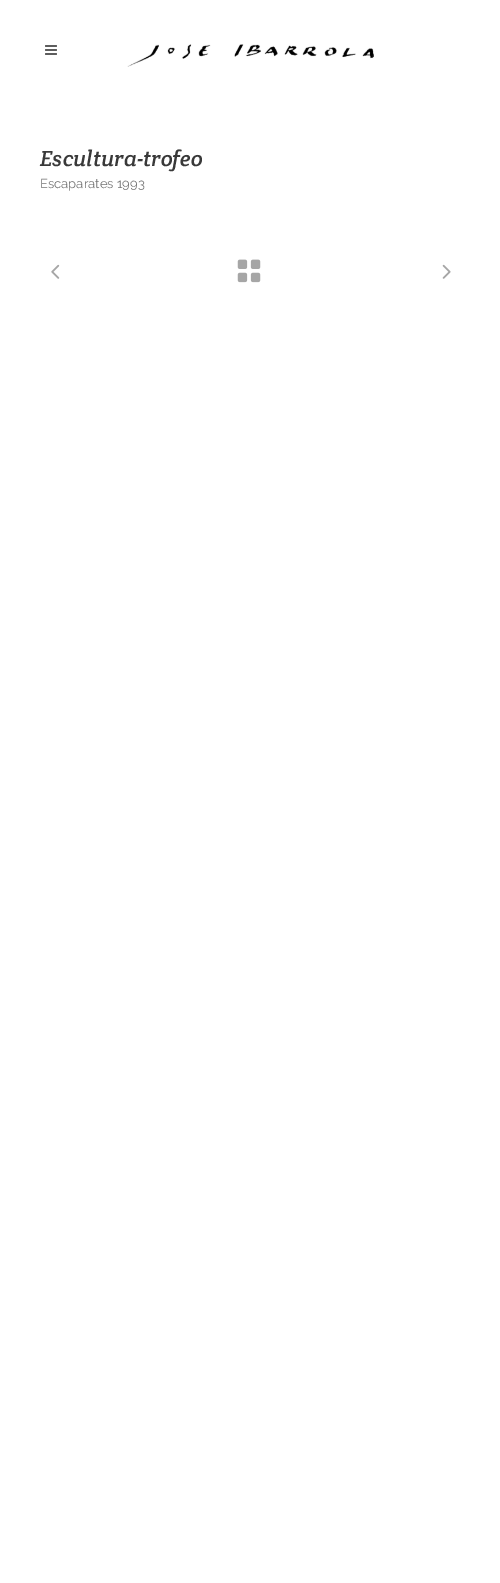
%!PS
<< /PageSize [500 1583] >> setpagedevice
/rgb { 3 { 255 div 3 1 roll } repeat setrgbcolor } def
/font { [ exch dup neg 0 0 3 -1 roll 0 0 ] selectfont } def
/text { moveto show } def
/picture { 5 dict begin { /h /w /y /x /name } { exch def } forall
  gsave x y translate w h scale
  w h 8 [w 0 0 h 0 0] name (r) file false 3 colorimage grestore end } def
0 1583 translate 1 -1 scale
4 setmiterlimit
255 255 255 rgb
0 0 500 1583 rectfill
(img_01.rgb) 45 45 12 10 picture
(img_02.rgb) 127 44 247 23 picture
(img_03.rgb) 51 264 9 15 picture
(img_04.rgb) 237 259 24 24 picture
(img_05.rgb) 442 264 9 15 picture
/CreteRound-Italic 22 font
57 57 57 rgb
(Escultura-trofeo) 40 166 text
/Raleway-Regular 13 font
117 117 117 rgb
(Escaparates 1993) 40 188 text
showpage
